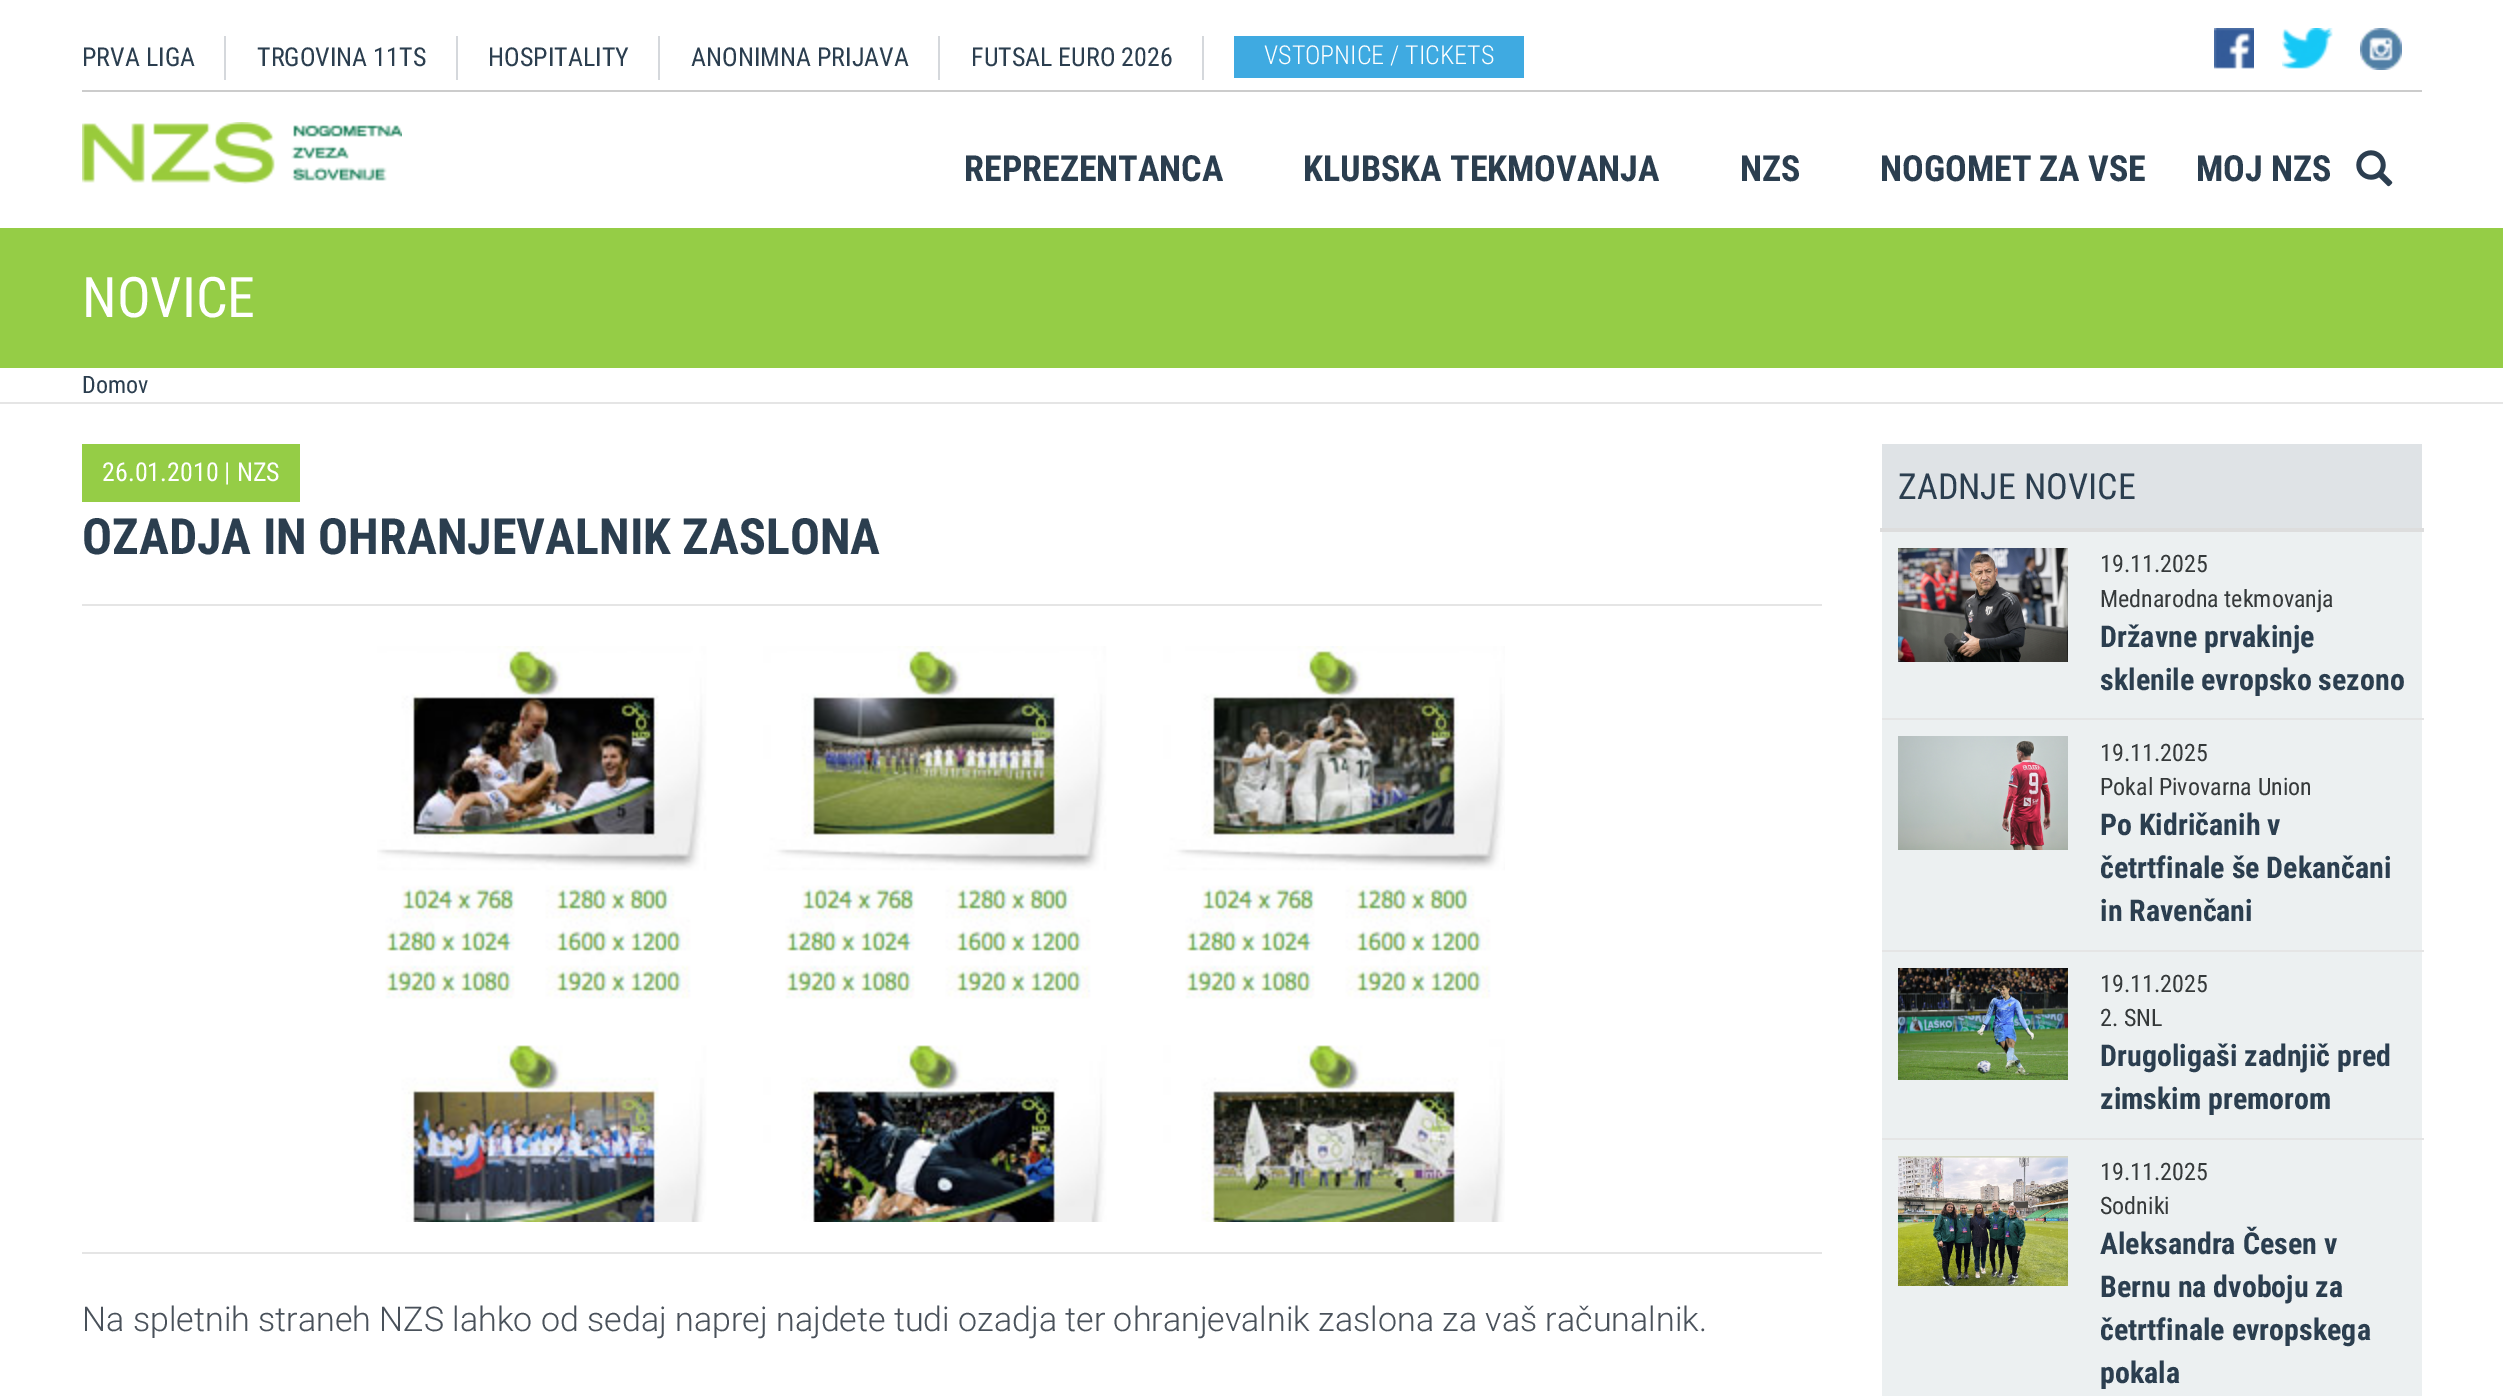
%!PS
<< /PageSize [2503 1396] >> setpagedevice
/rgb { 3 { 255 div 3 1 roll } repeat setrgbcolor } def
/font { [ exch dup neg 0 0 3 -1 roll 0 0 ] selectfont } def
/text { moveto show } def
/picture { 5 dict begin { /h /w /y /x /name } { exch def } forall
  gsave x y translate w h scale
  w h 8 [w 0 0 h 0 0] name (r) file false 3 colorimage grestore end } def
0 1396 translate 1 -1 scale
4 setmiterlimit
255 255 255 rgb
0 0 2503 1396 rectfill
204 204 204 rgb
82 90 2340 2 rectfill
213 216 220 rgb
224 36 2 44 rectfill
456 36 2 44 rectfill
658 36 2 44 rectfill
938 36 2 44 rectfill
1202 36 2 44 rectfill
63 170 225 rgb
1234 36 290 42 rectfill
(img_01.rgb) 2214 28 40 41 picture
(img_02.rgb) 2282 28 51 41 picture
(img_03.rgb) 2360 28 42 42 picture
(img_04.rgb) 82 122 320 62 picture
(img_05.rgb) 2356 150 37 37 picture
149 205 70 rgb
0 228 2503 140 rectfill
229 229 229 rgb
0 402 2503 2 rectfill
82 604 1740 2 rectfill
149 205 70 rgb
82 444 218 58 rectfill
229 229 229 rgb
82 1252 1740 2 rectfill
(img_06.rgb) 377 646 1128 576 picture
236 240 241 rgb
1882 532 540 864 rectfill
223 227 230 rgb
1882 444 540 84 rectfill
221 221 221 rgb
1880 528 544 4 rectfill
(img_07.rgb) 1898 548 170 114 picture
229 229 229 rgb
1882 718 542 2 rectfill
(img_08.rgb) 1898 736 170 114 picture
1882 950 542 2 rectfill
(img_09.rgb) 1898 968 170 112 picture
1882 1138 542 2 rectfill
(img_10.rgb) 1898 1156 170 130 picture
/RobotoCondensed-Regular 26 font
43 62 79 rgb
(PRVA LIGA) 82 66 text
(TRGOVINA 11TS) 257 66 text
(HOSPITALITY) 488 66 text
(ANONIMNA PRIJAVA) 691 66 text
(FUTSAL EURO 2026) 971 66 text
/RobotoCondensed-Light 26 font
255 255 255 rgb
(VSTOPNICE / TICKETS) 1264 64 text
/RobotoCondensed-Bold 36 font
43 62 79 rgb
(REPREZENTANCA) 964 181 text
(KLUBSKA TEKMOVANJA) 1303 181 text
(NZS) 1740 181 text
(NOGOMET ZA VSE) 1880 181 text
(MOJ NZS) 2196 181 text
/RobotoCondensed-Regular 56 font
255 255 255 rgb
(NOVICE) 82 317 text
/RobotoCondensed-Regular 24 font
43 62 79 rgb
(Domov) 82 393 text
/RobotoCondensed-Regular 26 font
255 255 255 rgb
(26.01.2010 | NZS) 102 481 text
/RobotoCondensed-Bold 50 font
43 62 79 rgb
(OZADJA IN OHRANJEVALNIK ZASLONA) 82 554 text
/Roboto-Light 34 font
73 81 90 rgb
(Na spletnih straneh NZS lahko od sedaj naprej najdete tudi ozadja ter ohranjevalnik zaslona za vaš računalnik.) 82 1331 text
/RobotoCondensed-Regular 36 font
43 62 79 rgb
(ZADNJE NOVICE) 1898 499 text
/RobotoCondensed-Regular 24 font
53 57 58 rgb
(19.11.2025) 2100 572 text
(Mednarodna tekmovanja) 2100 607 text
/RobotoCondensed-Bold 30 font
43 62 79 rgb
(Državne prvakinje) 2100 647 text
(sklenile evropsko sezono) 2100 690 text
/RobotoCondensed-Regular 24 font
53 57 58 rgb
(19.11.2025) 2100 761 text
(Pokal Pivovarna Union) 2100 795 text
/RobotoCondensed-Bold 30 font
43 62 79 rgb
(Po Kidričanih v) 2100 835 text
(četrtfinale še Dekančani) 2100 878 text
(in Ravenčani) 2100 921 text
/RobotoCondensed-Regular 24 font
53 57 58 rgb
(19.11.2025) 2100 992 text
(2. SNL) 2100 1026 text
/RobotoCondensed-Bold 30 font
43 62 79 rgb
(Drugoligaši zadnjič pred) 2100 1066 text
(zimskim premorom) 2100 1109 text
/RobotoCondensed-Regular 24 font
53 57 58 rgb
(19.11.2025) 2100 1180 text
(Sodniki) 2100 1214 text
/RobotoCondensed-Bold 30 font
43 62 79 rgb
(Aleksandra Česen v) 2100 1254 text
(Bernu na dvoboju za) 2100 1297 text
(četrtfinale evropskega) 2100 1340 text
(pokala) 2100 1383 text
showpage
